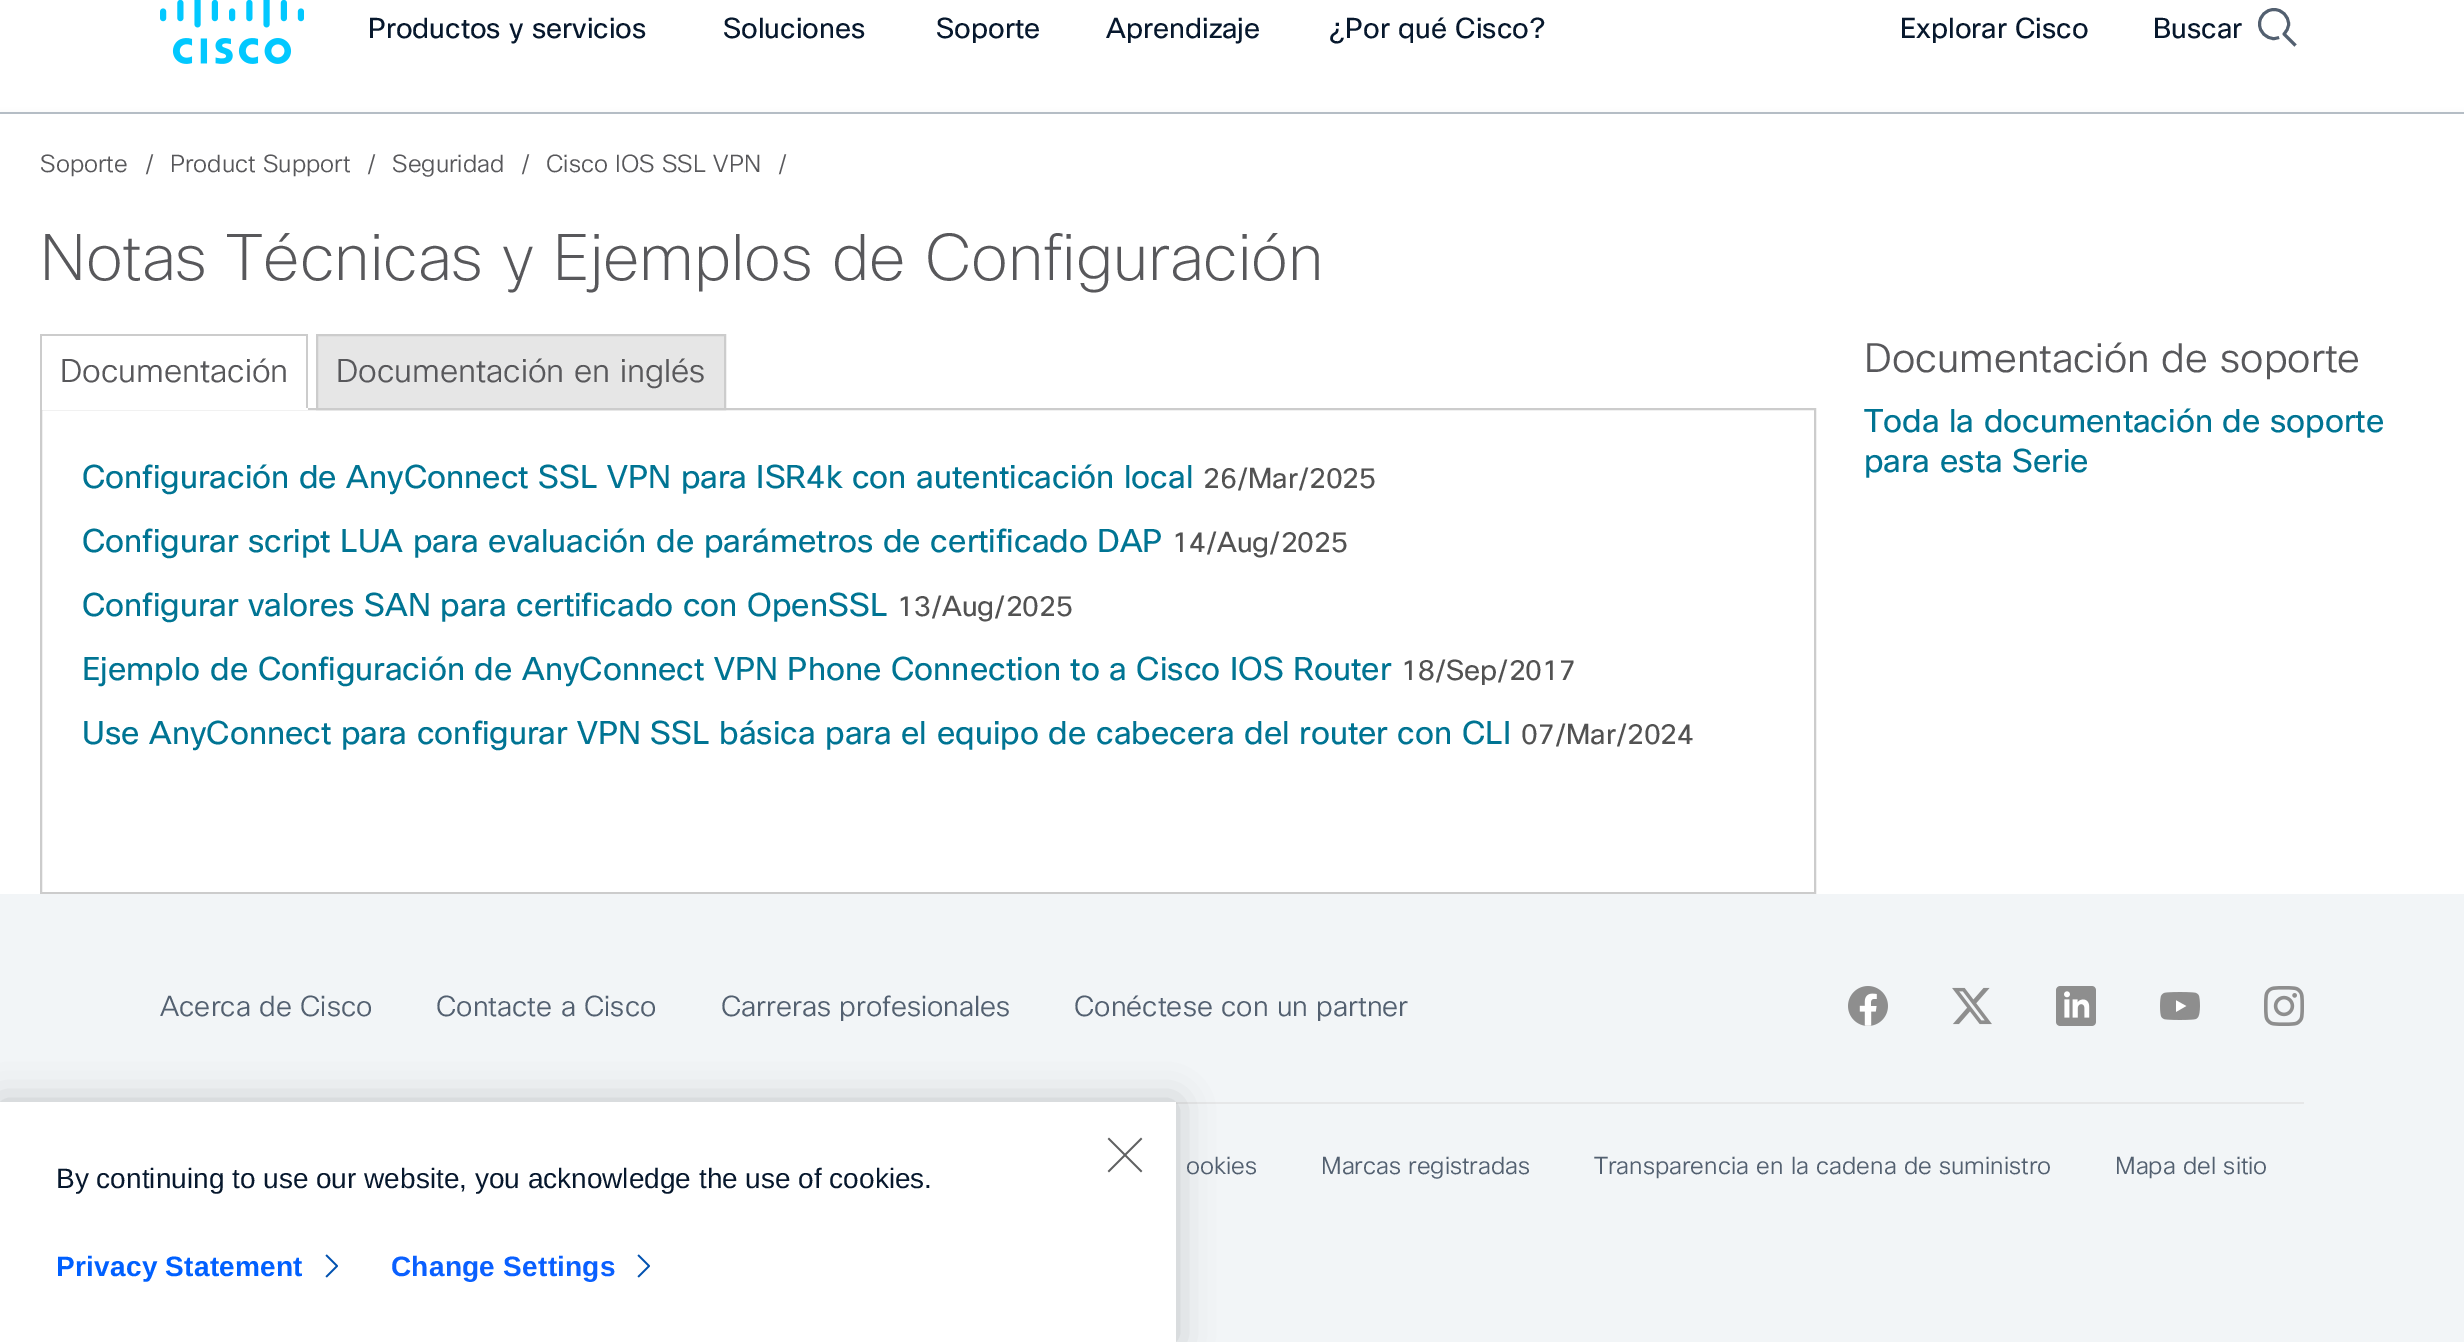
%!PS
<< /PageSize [2464 1342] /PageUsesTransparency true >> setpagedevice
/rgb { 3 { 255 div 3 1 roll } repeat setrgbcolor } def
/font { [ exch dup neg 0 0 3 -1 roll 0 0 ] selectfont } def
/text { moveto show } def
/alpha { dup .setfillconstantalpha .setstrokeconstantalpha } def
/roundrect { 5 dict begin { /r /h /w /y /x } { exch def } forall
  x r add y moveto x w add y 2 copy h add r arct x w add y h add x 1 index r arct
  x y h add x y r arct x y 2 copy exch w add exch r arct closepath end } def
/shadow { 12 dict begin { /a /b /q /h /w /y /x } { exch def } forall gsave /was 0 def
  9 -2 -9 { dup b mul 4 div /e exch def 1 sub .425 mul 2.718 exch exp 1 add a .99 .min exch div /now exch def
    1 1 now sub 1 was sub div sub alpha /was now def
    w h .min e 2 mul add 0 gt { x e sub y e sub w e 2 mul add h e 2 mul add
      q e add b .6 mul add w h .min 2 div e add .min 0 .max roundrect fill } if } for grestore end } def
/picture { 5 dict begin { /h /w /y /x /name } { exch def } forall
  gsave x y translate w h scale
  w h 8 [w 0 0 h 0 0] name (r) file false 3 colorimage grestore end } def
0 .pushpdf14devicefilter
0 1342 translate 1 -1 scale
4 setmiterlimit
255 255 255 rgb
0 0 2464 1342 rectfill
185 193 201 rgb
0 112 2464 2 rectfill
(img_01.rgb) 160 0 144 64 picture
83 96 112 rgb
2.9 setlinewidth
1 setlinejoin
2279 37.5 moveto -1.5 0.5 -3.5 1 -5 1 rcurveto -8 0 -14.5 -6.5 -14.5 -14.5 rcurveto 0 -8 6.5 -14.5 14.5 -14.5 rcurveto 8 0 14.5 6.5 14.5 14.5 rcurveto 0 4 -2 7.5 -4.5 10 rcurveto 11.5 11.5 rlineto stroke
0 0 0 rgb
0 118 2464 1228 0 5 0.12 shadow
255 255 255 rgb
0 114 2464 780 rectfill
204 204 204 rgb
40 334 268 2 rectfill
2 setlinewidth
0 setlinejoin
41 409 1774 484 rectstroke
306 334 2 76 rectfill
255 255 255 rgb
40 408 268 2 rectfill
204 204 204 rgb
40 334 2 76 rectfill
230 230 230 rgb
317 335 moveto 408 0 rlineto 0 74 rlineto -408 0 rlineto closepath gsave fill grestore
204 204 204 rgb
stroke
242 245 247 rgb
0 894 2464 448 rectfill
(img_02.rgb) 1848 986 40 40 picture
(img_03.rgb) 1952 987 40 38 picture
(img_04.rgb) 2056 986 40 40 picture
(img_05.rgb) 2160 992 40 28 picture
(img_06.rgb) 2264 986 40 40 picture
230 231 232 rgb
1176 1102 1128 2 rectfill
0 0 0 rgb
0 1102 1176 240 0 18 0.2 shadow
255 255 255 rgb
0 1102 1176 240 rectfill
(img_07.rgb) 1107 1137 36 36 picture
(img_08.rgb) 325 1254 13 24 picture
(img_08.rgb) 637 1254 13 24 picture
/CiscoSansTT-Regular 28 font
7 24 45 rgb
(Productos y servicios) 368 38 text
(Soluciones) 723 38 text
(Soporte) 936 38 text
(Aprendizaje) 1106 38 text
(¿Por qué Cisco?) 1329 38 text
(Explorar Cisco) 1900 38 text
(Buscar) 2153 38 text
/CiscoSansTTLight-Light 24 font
88 88 91 rgb
(Soporte) 40 172 text
(/) 145 172 text
(Product Support) 170 172 text
(/) 367 172 text
(Seguridad) 392 172 text
(/) 521 172 text
(Cisco IOS SSL VPN) 546 172 text
(/) 778 172 text
/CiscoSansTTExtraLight-ExtraLight 64 font
(Notas Técnicas y Ejemplos de Configuración) 40 280 text
/CiscoSansTTLight-Light 32 font
(Documentación) 60 382 text
(Documentación en inglés) 336 382 text
/CiscoSansTT-Regular 32 font
0 116 147 rgb
(Configuración de AnyConnect SSL VPN para ISR4k con autenticación local) 82 488 text
/CiscoSansTT-Regular 28 font
82 82 82 rgb
(26/Mar/2025) 1203 488 text
/CiscoSansTT-Regular 32 font
0 116 147 rgb
(Configurar script LUA para evaluación de parámetros de certificado DAP) 82 552 text
/CiscoSansTT-Regular 28 font
82 82 82 rgb
(14/Aug/2025) 1172 552 text
/CiscoSansTT-Regular 32 font
0 116 147 rgb
(Configurar valores SAN para certificado con OpenSSL) 82 616 text
/CiscoSansTT-Regular 28 font
82 82 82 rgb
(13/Aug/2025) 897 616 text
/CiscoSansTT-Regular 32 font
0 116 147 rgb
(Ejemplo de Configuración de AnyConnect VPN Phone Connection to a Cisco IOS Router) 82 680 text
/CiscoSansTT-Regular 28 font
82 82 82 rgb
(18/Sep/2017) 1401 680 text
/CiscoSansTT-Regular 32 font
0 116 147 rgb
(Use AnyConnect para configurar VPN SSL básica para el equipo de cabecera del router con CLI) 82 744 text
/CiscoSansTT-Regular 28 font
82 82 82 rgb
(07/Mar/2024) 1521 744 text
/CiscoSansTTLight-Light 40 font
88 88 91 rgb
(Documentación de soporte) 1864 372 text
/CiscoSansTT-Regular 32 font
0 116 147 rgb
(Toda la documentación de soporte) 1864 432 text
(para esta Serie) 1864 472 text
/CiscoSansTTLight-Light 28 font
83 96 112 rgb
(Acerca de Cisco) 160 1016 text
(Contacte a Cisco) 436 1016 text
(Carreras profesionales) 721 1016 text
(Conéctese con un partner) 1074 1016 text
/CiscoSansTTLight-Light 24 font
(ookies) 1186 1174 text
(Marcas registradas) 1321 1174 text
(Transparencia en la cadena de suministro) 1594 1174 text
(Mapa del sitio) 2115 1174 text
/LiberationSans-Regular 28 font
7 24 45 rgb
(By continuing to use our website, you acknowledge the use of cookies.) 56 1188 text
/LiberationSans-Bold 28 font
0 96 255 rgb
56 1276 moveto 0.25 0 (Privacy Statement) ashow
10 96 255 rgb
391 1276 moveto 0.25 0 (Change Settings) ashow
.poppdf14devicefilter showpage
